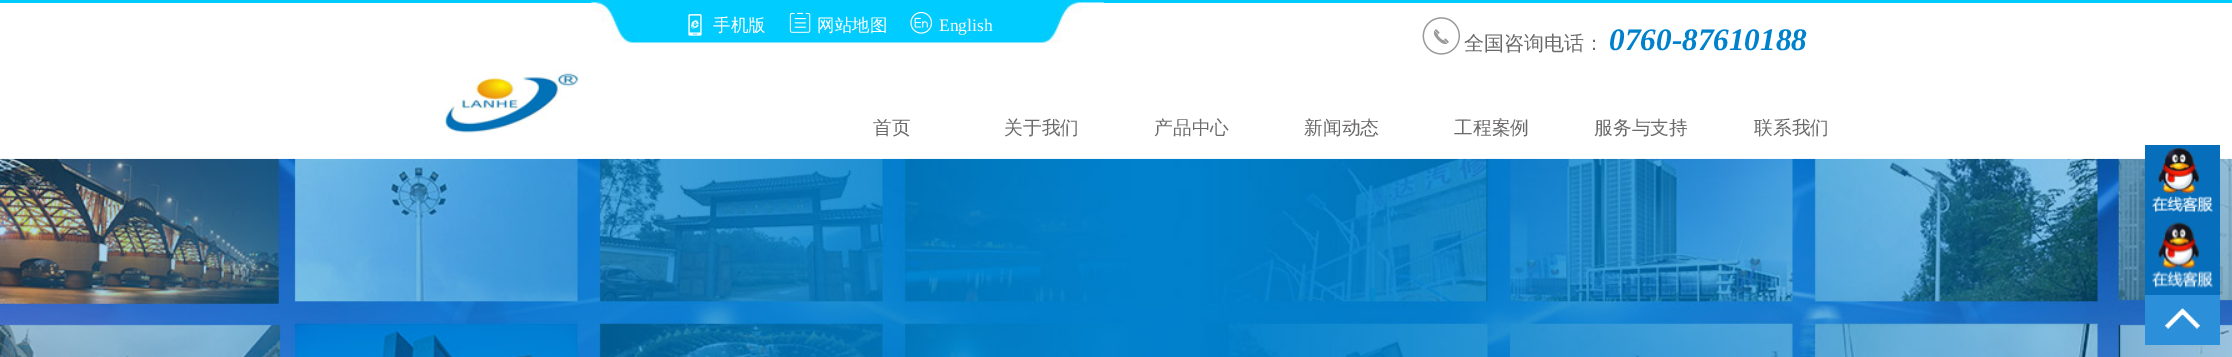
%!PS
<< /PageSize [2232 357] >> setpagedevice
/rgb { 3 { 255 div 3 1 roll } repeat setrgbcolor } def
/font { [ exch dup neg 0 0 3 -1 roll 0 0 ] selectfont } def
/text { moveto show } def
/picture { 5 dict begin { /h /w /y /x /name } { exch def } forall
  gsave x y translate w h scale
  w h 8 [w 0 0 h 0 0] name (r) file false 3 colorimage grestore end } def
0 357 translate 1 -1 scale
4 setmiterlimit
255 255 255 rgb
0 0 2232 357 rectfill
0 204 255 rgb
0 0 2232 3 rectfill
(img_01.rgb) 591 2 513 41 picture
(img_02.rgb) 688 14 14 22 picture
(img_03.rgb) 789 12 22 21 picture
(img_04.rgb) 910 11 23 23 picture
(img_05.rgb) 1422 17 39 38 picture
(img_06.rgb) 444 69 135 65 picture
(img_10.rgb) 0 158 2232 199 picture
6 110 186 rgb
2145 145 75 150 rectfill
(img_07.rgb) 2152 148 61 64 picture
(img_08.rgb) 2152 222 61 66 picture
43 144 217 rgb
2145 295 75 50 rectfill
(img_09.rgb) 2165 308 35 21 picture
/WenQuanYiZenHei-Medium 17.5 font
255 255 255 rgb
(手机版) 713 31 text
(网站地图) 817 31 text
/LiberationSerif-Regular 17.5 font
(English) 939 31 text
/WenQuanYiZenHei-Medium 20 font
107 105 105 rgb
(全国咨询电话：) 1464 50 text
/LiberationSerif-BoldItalic 31.25 font
0 129 204 rgb
(0760-87610188) 1609 50 text
/WenQuanYiZenHei-Medium 18.75 font
107 105 105 rgb
(首页) 873 134 text
(关于我们) 1004 134 text
(产品中心) 1154 134 text
(新闻动态) 1304 134 text
(工程案例) 1454 134 text
(服务与支持) 1594 134 text
(联系我们) 1754 134 text
showpage
